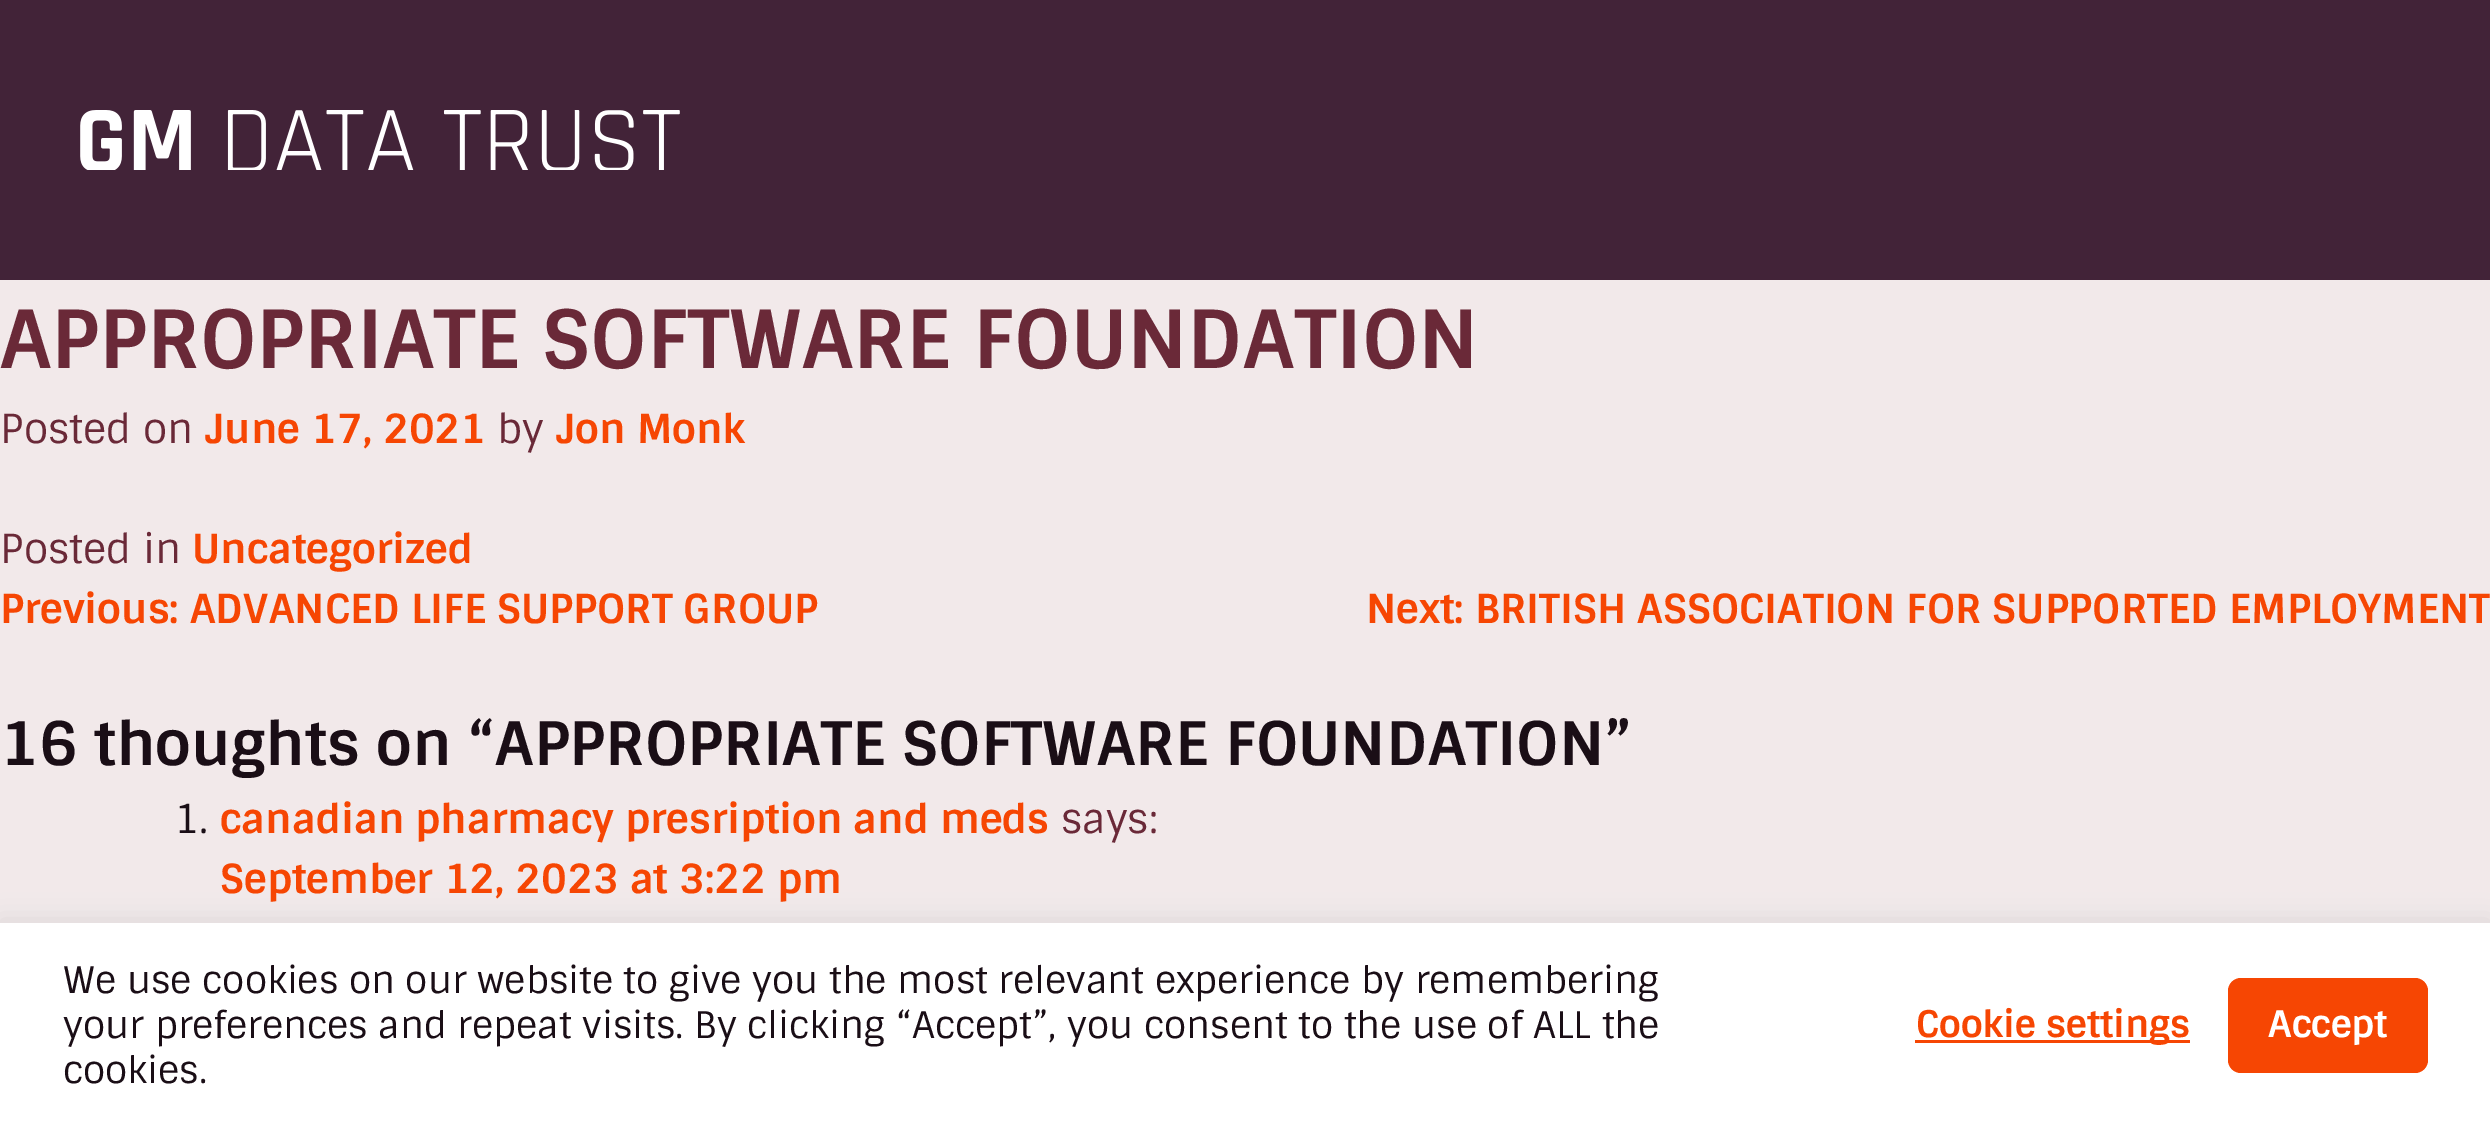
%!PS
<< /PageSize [2490 1127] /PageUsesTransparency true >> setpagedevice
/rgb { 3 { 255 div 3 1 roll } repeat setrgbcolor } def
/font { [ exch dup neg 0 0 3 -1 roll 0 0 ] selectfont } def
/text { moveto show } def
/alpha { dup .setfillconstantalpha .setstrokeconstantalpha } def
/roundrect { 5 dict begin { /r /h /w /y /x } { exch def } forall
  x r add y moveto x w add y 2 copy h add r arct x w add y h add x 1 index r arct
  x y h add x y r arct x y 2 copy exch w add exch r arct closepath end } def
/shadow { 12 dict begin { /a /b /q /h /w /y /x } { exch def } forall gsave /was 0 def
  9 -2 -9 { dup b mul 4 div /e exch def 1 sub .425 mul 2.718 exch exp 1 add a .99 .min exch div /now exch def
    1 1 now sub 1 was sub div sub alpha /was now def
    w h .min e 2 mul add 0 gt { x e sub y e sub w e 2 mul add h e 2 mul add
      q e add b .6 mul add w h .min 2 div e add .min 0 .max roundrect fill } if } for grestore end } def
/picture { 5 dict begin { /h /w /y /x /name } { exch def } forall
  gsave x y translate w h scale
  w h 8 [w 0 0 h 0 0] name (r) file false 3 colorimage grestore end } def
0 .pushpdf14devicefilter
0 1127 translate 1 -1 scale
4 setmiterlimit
242 233 234 rgb
0 0 2490 1127 rectfill
66 35 56 rgb
0 0 2490 280 rectfill
(img_01.rgb) 80 110 600 60 picture
172 171 171 rgb
0 920 2490 205 0 12.5 0.3 shadow
255 255 255 rgb
0 923 2490 204 rectfill
246 70 3 rgb
1915 1040 275 3 rectfill
2228 978 200 95 13 roundrect fill
/Sintony-Bold 80 font
106 41 56 rgb
(APPROPRIATE SOFTWARE FOUNDATION) 0 368 text
/Sintony-Regular 40 font
(Posted on) 0 443 text
/Sintony-Bold 40 font
246 70 3 rgb
(June 17, 2021) 205 443 text
/Sintony-Regular 40 font
106 41 56 rgb
(by) 497 443 text
/Sintony-Bold 40 font
246 70 3 rgb
(Jon Monk) 556 443 text
/Sintony-Regular 40 font
106 41 56 rgb
(Posted in) 0 563 text
/Sintony-Bold 40 font
246 70 3 rgb
(Uncategorized) 192 563 text
(Previous: ADVANCED LIFE SUPPORT GROUP) 0 623 text
(Next: BRITISH ASSOCIATION FOR SUPPORTED EMPLOYMENT) 1366 623 text
/Sintony-Bold 60 font
26 14 22 rgb
(16 thoughts on “APPROPRIATE SOFTWARE FOUNDATION”) 0 765 text
/Sintony-Regular 40 font
(1.) 174 833 text
/Sintony-Bold 40 font
246 70 3 rgb
(canadian pharmacy presription and meds) 220 833 text
/Sintony-Regular 40 font
106 41 56 rgb
(says:) 1061 833 text
/Sintony-Bold 40 font
246 70 3 rgb
(September 12, 2023 at 3:22 pm) 220 893 text
/Sintony-Regular 36.65 font
26 14 22 rgb
(We use cookies on our website to give you the most relevant experience by remembering) 63 993 text
(your preferences and repeat visits. By clicking “Accept”, you consent to the use of ALL the) 63 1038 text
(cookies.) 63 1083 text
/Sintony-Bold 36.65 font
246 70 3 rgb
(Cookie settings) 1916 1037 text
255 255 255 rgb
(Accept) 2268 1037 text
.poppdf14devicefilter showpage
